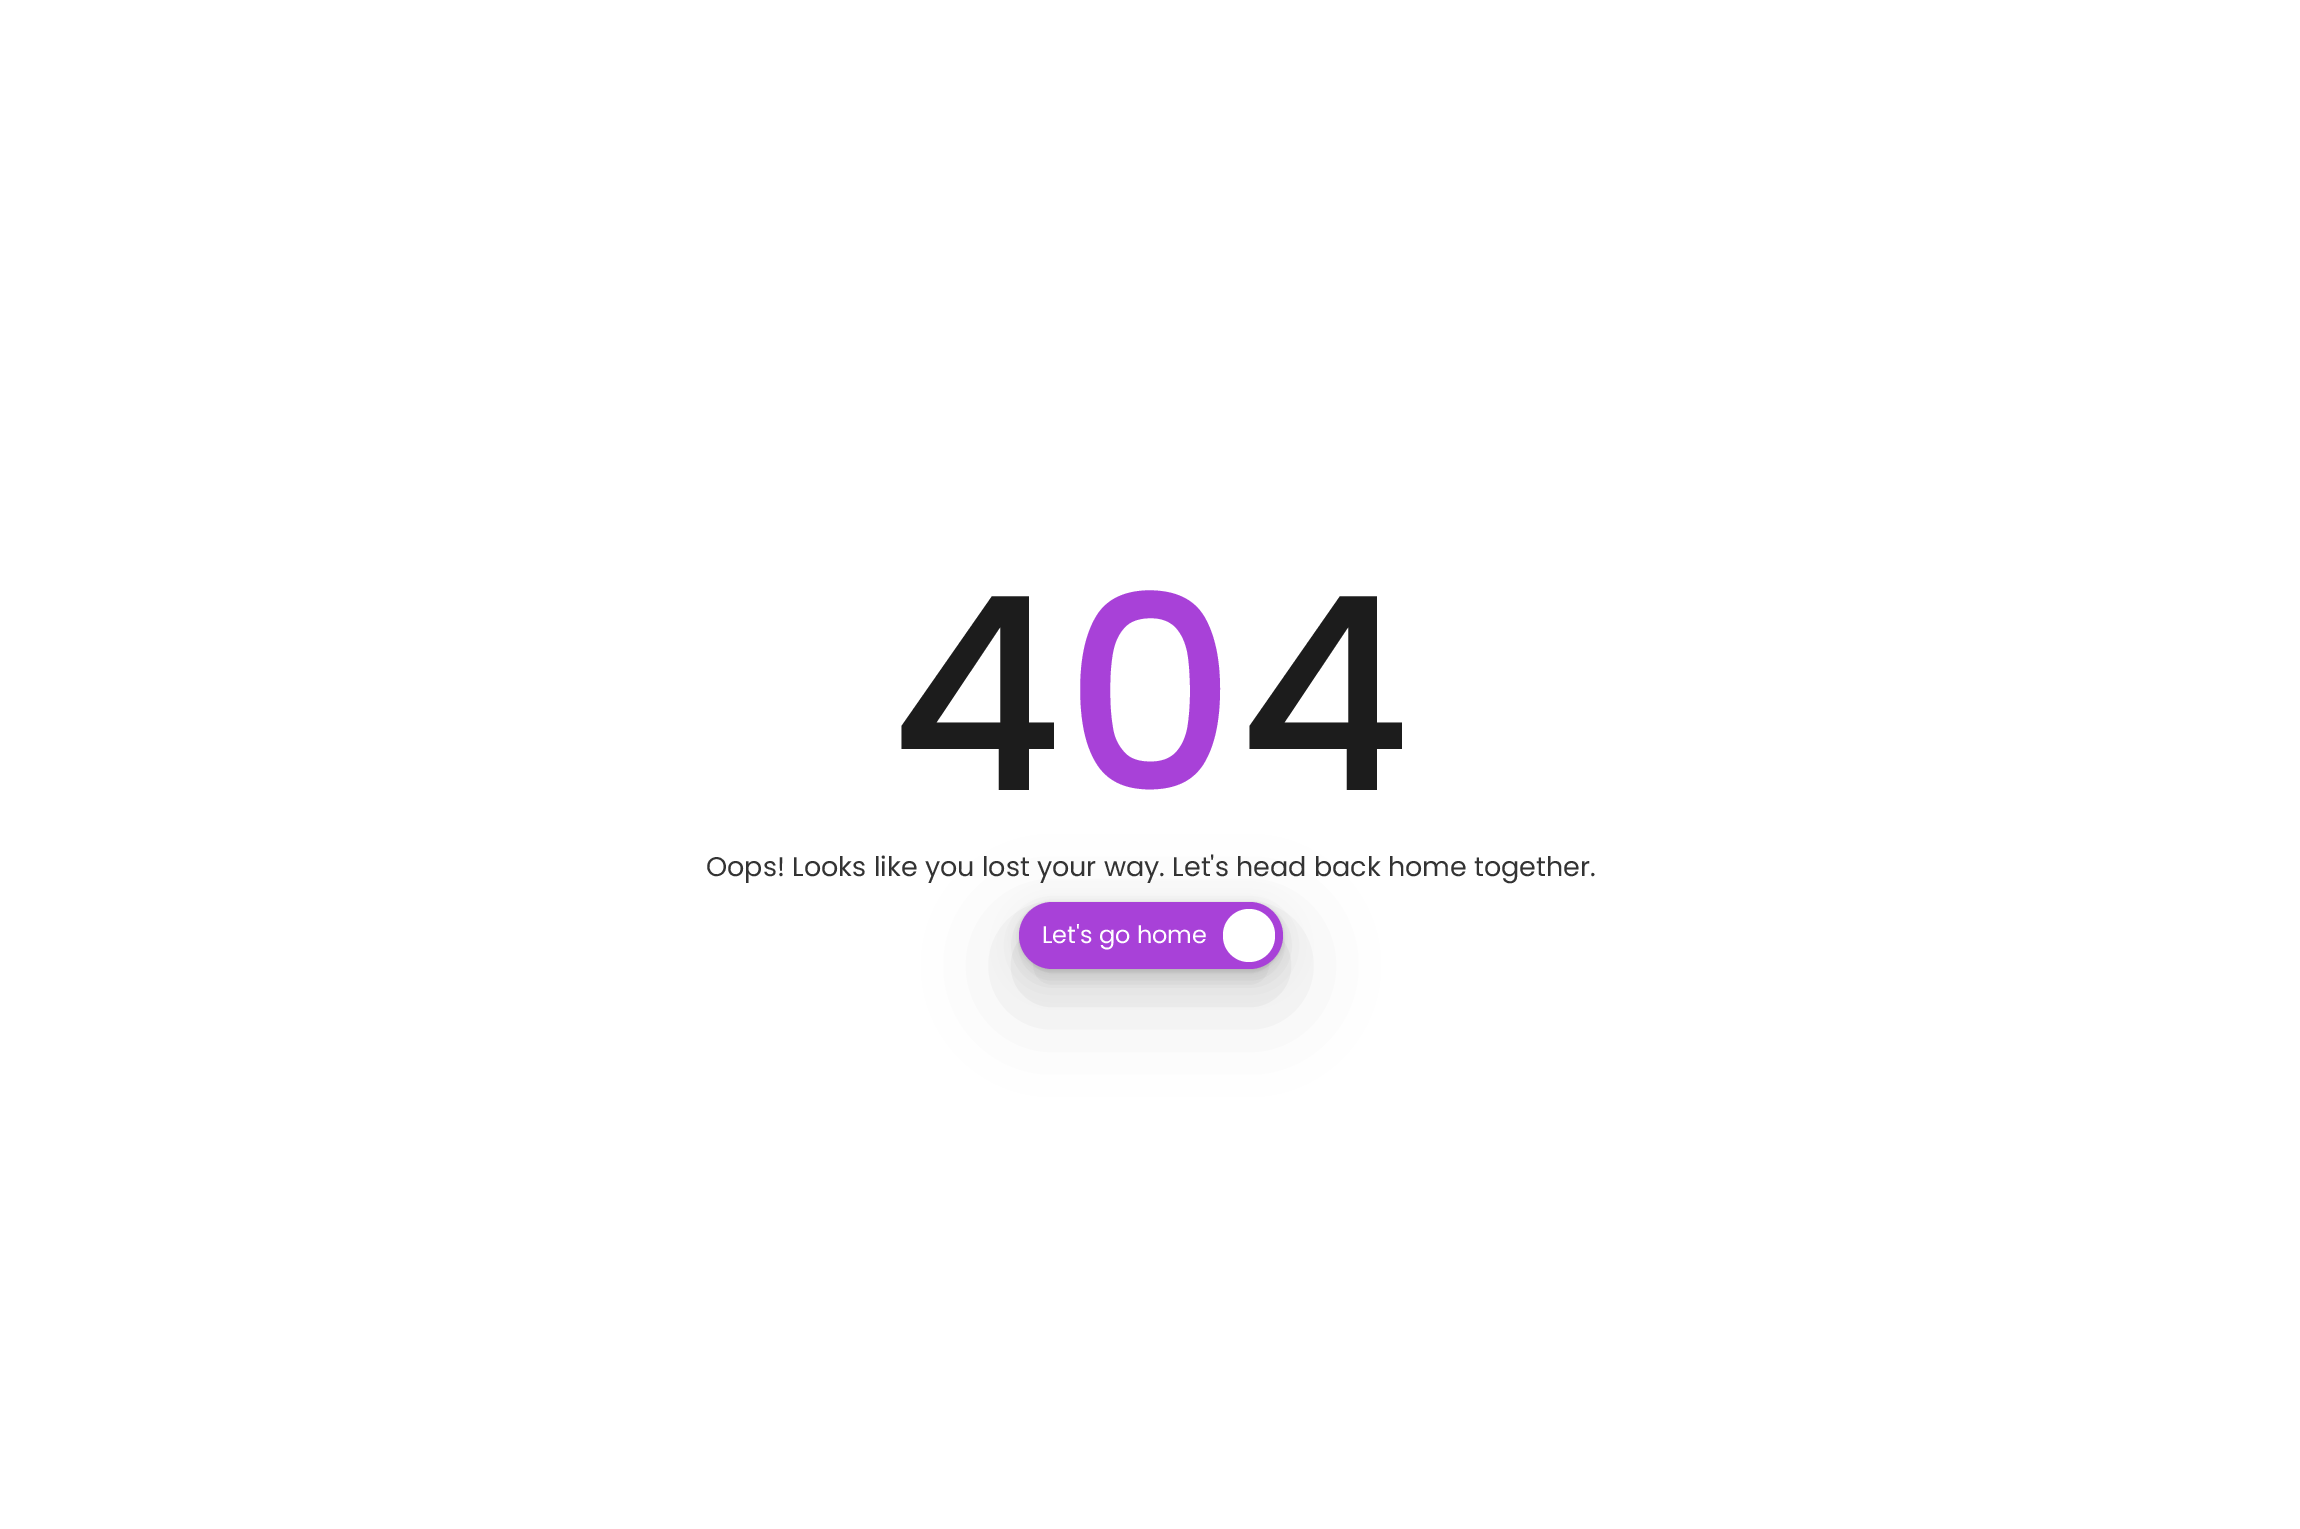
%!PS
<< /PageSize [2300 1529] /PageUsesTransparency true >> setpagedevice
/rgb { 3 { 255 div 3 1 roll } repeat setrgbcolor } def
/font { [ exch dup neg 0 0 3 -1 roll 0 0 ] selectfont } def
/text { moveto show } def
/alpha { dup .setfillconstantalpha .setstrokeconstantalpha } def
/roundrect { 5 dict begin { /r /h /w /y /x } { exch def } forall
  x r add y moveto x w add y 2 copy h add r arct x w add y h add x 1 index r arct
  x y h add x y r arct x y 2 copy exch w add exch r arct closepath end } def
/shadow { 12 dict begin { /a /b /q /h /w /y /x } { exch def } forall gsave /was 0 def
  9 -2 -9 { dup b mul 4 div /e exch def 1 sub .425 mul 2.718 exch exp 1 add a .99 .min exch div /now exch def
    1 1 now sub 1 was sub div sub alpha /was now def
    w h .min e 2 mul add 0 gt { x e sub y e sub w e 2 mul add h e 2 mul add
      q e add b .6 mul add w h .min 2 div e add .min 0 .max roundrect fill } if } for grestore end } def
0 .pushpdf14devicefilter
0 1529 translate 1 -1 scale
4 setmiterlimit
255 255 255 rgb
0 0 2300 1529 rectfill
0 0 0 rgb
1022 935 258 61 30.5 45 0.15 shadow
1022 914 259 63 31.5 14.5 0.12 shadow
1020 906 261 65 32.5 5.5 0.11 shadow
1020 903 263 66 33 2 0.1 shadow
168 65 216 rgb
1019 902 264 67 33.5 roundrect fill
255 255 255 rgb
1223 909 52 53 26 roundrect fill
/Poppins-Medium 270 font
28 28 28 rgb
(4) 889 790 text
168 65 216 rgb
(0) 1064 790 text
28 28 28 rgb
(4) 1237 790 text
/Poppins-Regular 27 font
51 51 51 rgb
(Oops! Looks like you lost your way. Let's head back home together.) 706 876 text
/Poppins-Regular 24 font
255 255 255 rgb
(Let's go home) 1042 943 text
.poppdf14devicefilter showpage
